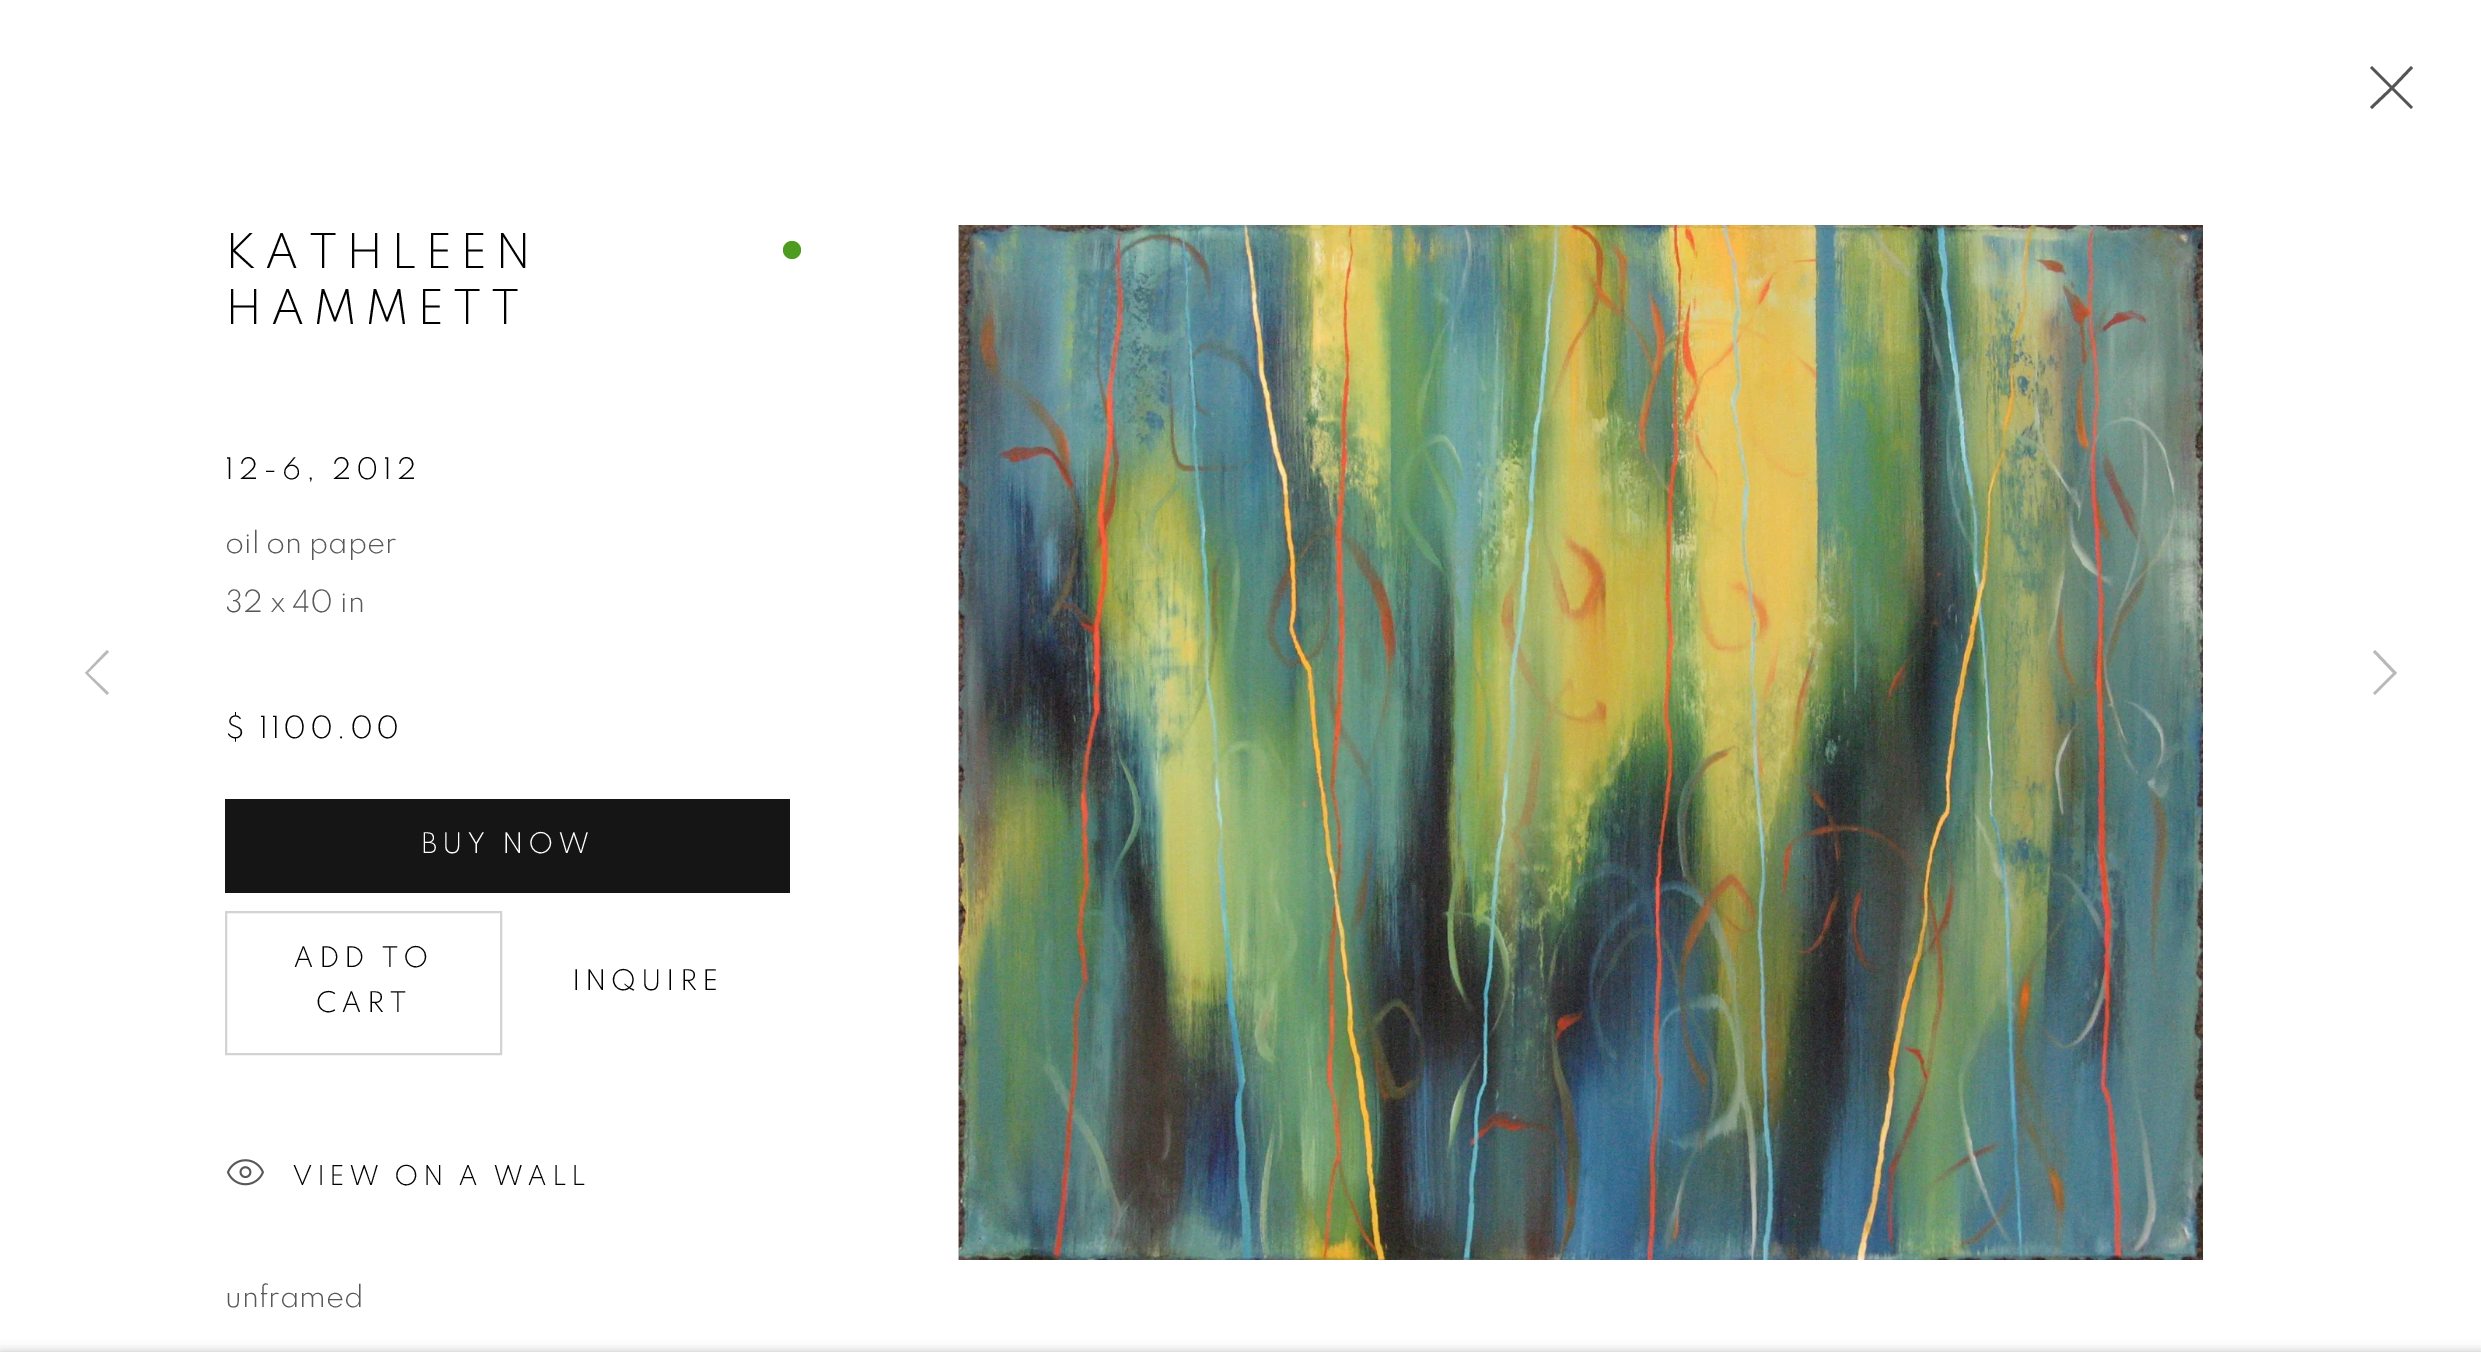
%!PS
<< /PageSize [2481 1352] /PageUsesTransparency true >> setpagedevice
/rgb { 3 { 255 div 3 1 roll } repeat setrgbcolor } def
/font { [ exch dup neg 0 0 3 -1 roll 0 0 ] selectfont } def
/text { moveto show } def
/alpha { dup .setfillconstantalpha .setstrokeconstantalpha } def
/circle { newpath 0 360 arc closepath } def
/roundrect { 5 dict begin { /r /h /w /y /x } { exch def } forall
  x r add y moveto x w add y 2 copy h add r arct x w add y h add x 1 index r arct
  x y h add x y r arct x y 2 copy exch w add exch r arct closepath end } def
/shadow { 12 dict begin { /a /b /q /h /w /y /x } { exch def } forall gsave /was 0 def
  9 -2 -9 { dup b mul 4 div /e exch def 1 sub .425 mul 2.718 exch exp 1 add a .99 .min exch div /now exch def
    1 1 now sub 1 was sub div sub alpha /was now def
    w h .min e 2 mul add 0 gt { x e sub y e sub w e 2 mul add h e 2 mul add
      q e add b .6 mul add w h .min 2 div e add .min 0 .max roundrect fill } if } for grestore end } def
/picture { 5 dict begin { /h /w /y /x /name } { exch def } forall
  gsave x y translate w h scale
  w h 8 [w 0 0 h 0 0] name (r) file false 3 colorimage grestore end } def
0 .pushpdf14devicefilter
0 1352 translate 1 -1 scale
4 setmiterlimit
255 255 255 rgb
0 0 2481 1352 rectfill
85 85 85 rgb
2413 68 moveto -2 -2 rlineto -19 20 rlineto -20 -20 rlineto -2 2 rlineto 20 20 rlineto -20 19 rlineto 2 2 rlineto 20 -19 rlineto 19 19 rlineto 2 -2 rlineto -19 -19 rlineto closepath fill
78 156 31 rgb
792 250 9 circle fill
21 21 21 rgb
225 799 565 94 rectfill
211 211 211 rgb
2 setlinewidth
226 912 275 142 rectstroke
(img_01.rgb) 226 1159 38 27 picture
(img_02.rgb) 958 225 1245 1035 picture
185 185 185 rgb
87 675 moveto 20 20 rlineto 2 -2 rlineto -21 -20 rlineto 21 -21 rlineto -2 -2 rlineto -22 23 rlineto closepath fill
2397 673 moveto -22 -23 rlineto -2 2 rlineto 20 21 rlineto -20 20 rlineto 2 2 rlineto closepath fill
0 0 0 rgb
0 1352 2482 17 0 5.5 0.23 shadow
/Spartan-Light 49.5 font
1 1 1 rgb
225 268 moveto 8 0 (KATHLEEN) ashow
225 324 moveto 8 0 (HAMMETT) ashow
/Spartan-Light 30.5 font
225 479 moveto 4.9 0 (12-6, 2012) ashow
/Spartan-Light 31.5 font
88 88 88 rgb
(oil on paper) 225 553 text
(32 x 40 in) 225 612 text
1 1 1 rgb
225 738 moveto 3.25 0 ($ 1100.00) ashow
/Spartan-Light 29.25 font
255 255 255 rgb
421 853 moveto 4.75 0 (BUY NOW) ashow
1 1 1 rgb
293 967 moveto 4.75 0 (ADD TO) ashow
316 1012 moveto 4.75 0 (CART) ashow
572 990 moveto 4.75 0 (INQUIRE) ashow
/Spartan-Light 28.1 font
292 1185 moveto 4.25 0 (VIEW ON A WALL) ashow
/Spartan-Light 31.5 font
88 88 88 rgb
(unframed) 225 1307 text
.poppdf14devicefilter showpage
